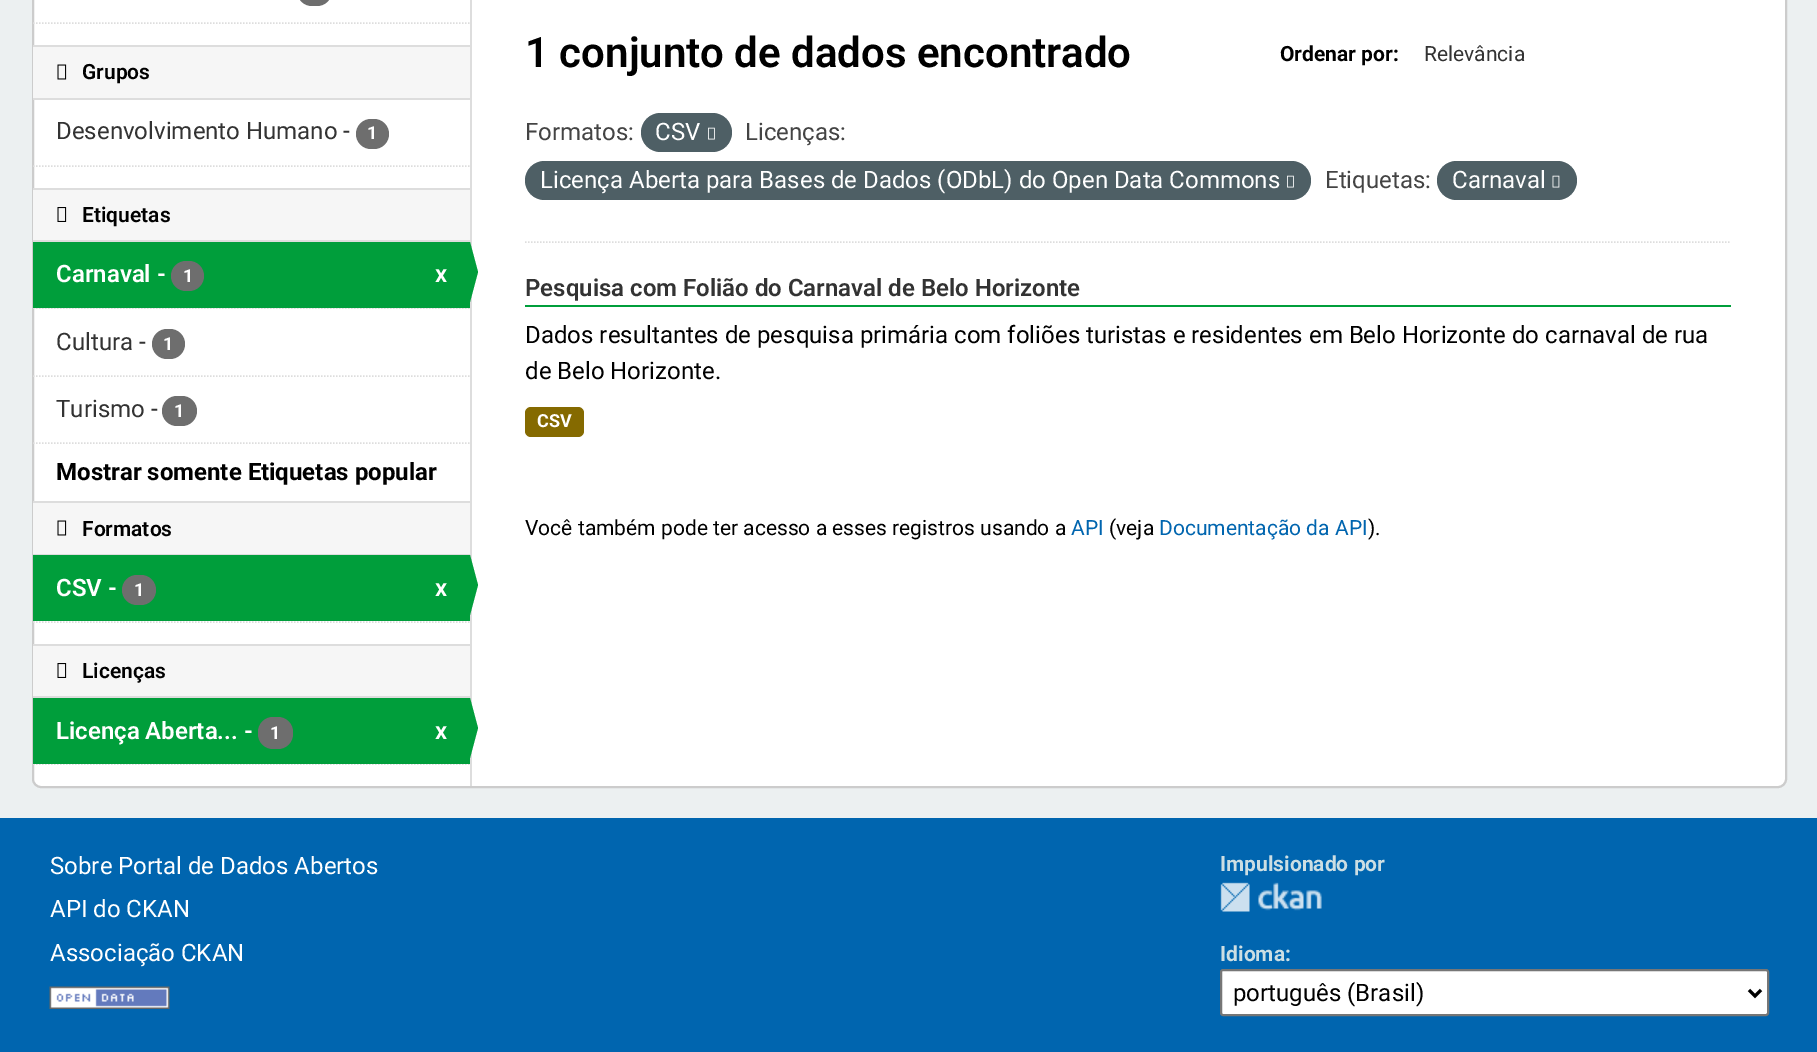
%!PS
<< /PageSize [1817 1052] >> setpagedevice
/rgb { 3 { 255 div 3 1 roll } repeat setrgbcolor } def
/font { [ exch dup neg 0 0 3 -1 roll 0 0 ] selectfont } def
/text { moveto show } def
/roundrect { 5 dict begin { /r /h /w /y /x } { exch def } forall
  x r add y moveto x w add y 2 copy h add r arct x w add y h add x 1 index r arct
  x y h add x y r arct x y 2 copy exch w add exch r arct closepath end } def
/picture { 5 dict begin { /h /w /y /x /name } { exch def } forall
  gsave x y translate w h scale
  w h 8 [w 0 0 h 0 0] name (r) file false 3 colorimage grestore end } def
0 1052 translate 1 -1 scale
4 setmiterlimit
236 240 241 rgb
0 0 1817 1052 rectfill
255 255 255 rgb
33 -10 1753 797 8 roundrect gsave fill grestore
204 204 204 rgb
2 setlinewidth
stroke
110 110 110 rgb
297 -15 35 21 15 roundrect fill
221 221 221 rgb
1.5 setlinewidth
[1.5 1.5] 0 setdash
33 23 moveto 436.5 0 rlineto stroke
246 246 246 rgb
33 47 437 51 rectfill
221 221 221 rgb
33 45 437 2 rectfill
33 98 437 2 rectfill
(img_01.rgb) 57 64 10 16 picture
110 110 110 rgb
356 119 33 30 15 roundrect fill
221 221 221 rgb
33 166 moveto 436.5 0 rlineto stroke
246 246 246 rgb
33 190 437 50 rectfill
221 221 221 rgb
33 188 437 2 rectfill
33 240 437 2 rectfill
(img_02.rgb) 57 207 10 15 picture
246 246 246 rgb
33 308 437 1 rectfill
221 221 221 rgb
33 308 moveto 436.5 0 rlineto stroke
0 158 59 rgb
33 242 437 66 rectfill
110 110 110 rgb
171 261 33 30 15 roundrect fill
221 221 221 rgb
470 0 2 786 rectfill
0 158 59 rgb
470 302 moveto 0 -60 rlineto 8 30 rlineto closepath fill
221 221 221 rgb
33 376 moveto 436.5 0 rlineto stroke
110 110 110 rgb
152 329 33 30 15 roundrect fill
162 396 35 30 15 roundrect fill
221 221 221 rgb
33 443 moveto 436.5 0 rlineto stroke
246 246 246 rgb
33 503 437 51 rectfill
221 221 221 rgb
33 501 437 2 rectfill
33 554 437 1 rectfill
(img_01.rgb) 57 520 10 16 picture
0 158 59 rgb
33 555 437 66 rectfill
110 110 110 rgb
122 575 34 30 15 roundrect fill
0 158 59 rgb
470 615 moveto 0 -60 rlineto 8 30 rlineto closepath fill
221 221 221 rgb
33 622 moveto 436.5 0 rlineto stroke
246 246 246 rgb
33 646 437 50 rectfill
221 221 221 rgb
33 644 437 2 rectfill
33 696 437 2 rectfill
(img_02.rgb) 57 663 10 15 picture
33 764 moveto 436.5 0 rlineto stroke
0 158 59 rgb
33 698 437 66 rectfill
110 110 110 rgb
258 717 35 32 15 roundrect fill
0 158 59 rgb
470 758 moveto 0 -60 rlineto 8 30 rlineto closepath fill
221 221 221 rgb
525 242 moveto 1206 0 rlineto stroke
78 95 101 rgb
641 113 91 39 19.5 roundrect fill
(img_03.rgb) 708 127 7 13 picture
525 161 786 39 19.5 roundrect fill
(img_03.rgb) 1287 175 7 13 picture
1437 161 140 39 19.5 roundrect fill
(img_04.rgb) 1552 175 8 13 picture
0 158 59 rgb
525 305 1206 2 rectfill
133 106 0 rgb
525 407 59 30 6 roundrect fill
0 101 175 rgb
0 818 1817 234 rectfill
(img_05.rgb) 49 986 121 23 picture
(img_06.rgb) 1220 882 102 30 picture
255 255 255 rgb
1221 970 547 45 2 roundrect gsave fill grestore
118 118 118 rgb
2 setlinewidth
[] 0 setdash
stroke
0 0 0 rgb
3 setlinewidth
1749 990 moveto 6 6 rlineto 6 -6 rlineto stroke
/Roboto-SemiBold 21 font
(Grupos) 82 79 text
/Roboto-Regular 24 font
51 51 51 rgb
(Desenvolvimento Humano -) 56 139 text
/Roboto-Bold 18 font
255 255 255 rgb
(1) 367 139 text
/Roboto-SemiBold 21 font
0 0 0 rgb
(Etiquetas) 82 222 text
/Roboto-SemiBold 24 font
255 255 255 rgb
(Carnaval -) 56 282 text
/Roboto-Bold 18 font
(1) 183 282 text
/Roboto-SemiBold 24 font
(x) 435 282 text
/Roboto-Regular 24 font
51 51 51 rgb
(Cultura -) 56 350 text
/Roboto-Bold 18 font
255 255 255 rgb
(1) 163 350 text
/Roboto-Regular 24 font
51 51 51 rgb
(Turismo -) 56 417 text
/Roboto-Bold 18 font
255 255 255 rgb
(1) 174 417 text
/Roboto-Bold 24 font
0 0 0 rgb
(Mostrar somente Etiquetas popular) 56 480 text
/Roboto-SemiBold 21 font
(Formatos) 82 536 text
/Roboto-SemiBold 24 font
255 255 255 rgb
(CSV -) 56 596 text
/Roboto-Bold 18 font
(1) 134 596 text
/Roboto-SemiBold 24 font
(x) 435 596 text
/Roboto-SemiBold 21 font
0 0 0 rgb
(Licenças) 82 678 text
/Roboto-SemiBold 24 font
255 255 255 rgb
(Licença Aberta... -) 56 739 text
/Roboto-Bold 18 font
(1) 270 739 text
/Roboto-SemiBold 24 font
(x) 435 739 text
/Roboto-SemiBold 42 font
0 0 0 rgb
(1 conjunto de dados encontrado) 525 67 text
/Roboto-Bold 21 font
(Ordenar por:) 1280 61 text
/Roboto-Regular 21 font
51 51 51 rgb
(Relevância) 1424 61 text
/Roboto-Regular 24 font
68 68 68 rgb
(Formatos:) 525 140 text
255 255 255 rgb
(CSV) 655 140 text
68 68 68 rgb
(Licenças:) 745 140 text
255 255 255 rgb
(Licença Aberta para Bases de Dados \(ODbL\) do Open Data Commons) 540 188 text
68 68 68 rgb
(Etiquetas:) 1325 188 text
255 255 255 rgb
(Carnaval) 1452 188 text
/Roboto-SemiBold 24 font
51 51 51 rgb
(Pesquisa com Folião do Carnaval de Belo Horizonte) 525 296 text
/Roboto-Regular 24 font
0 0 0 rgb
(Dados resultantes de pesquisa primária com foliões turistas e residentes em Belo Horizonte do carnaval de rua) 525 343 text
(de Belo Horizonte.) 525 379 text
/Roboto-Bold 18 font
255 255 255 rgb
(CSV) 537 427 text
/Roboto-Regular 21 font
0 0 0 rgb
(Você também pode ter acesso a esses registros usando a) 525 535 text
0 101 175 rgb
(API) 1071 535 text
0 0 0 rgb
(\(veja) 1109 535 text
0 101 175 rgb
(Documentação da API) 1159 535 text
0 0 0 rgb
(\).) 1368 535 text
/Roboto-Regular 24 font
255 255 255 rgb
(Sobre Portal de Dados Abertos) 50 874 text
(API do CKAN) 50 917 text
(Associação CKAN) 50 961 text
/Roboto-Bold 21 font
204 222 227 rgb
(Impulsionado por) 1220 871 text
(Idioma:) 1220 961 text
/Roboto-Regular 24 font
0 0 0 rgb
(português \(Brasil\)) 1233 1001 text
showpage
